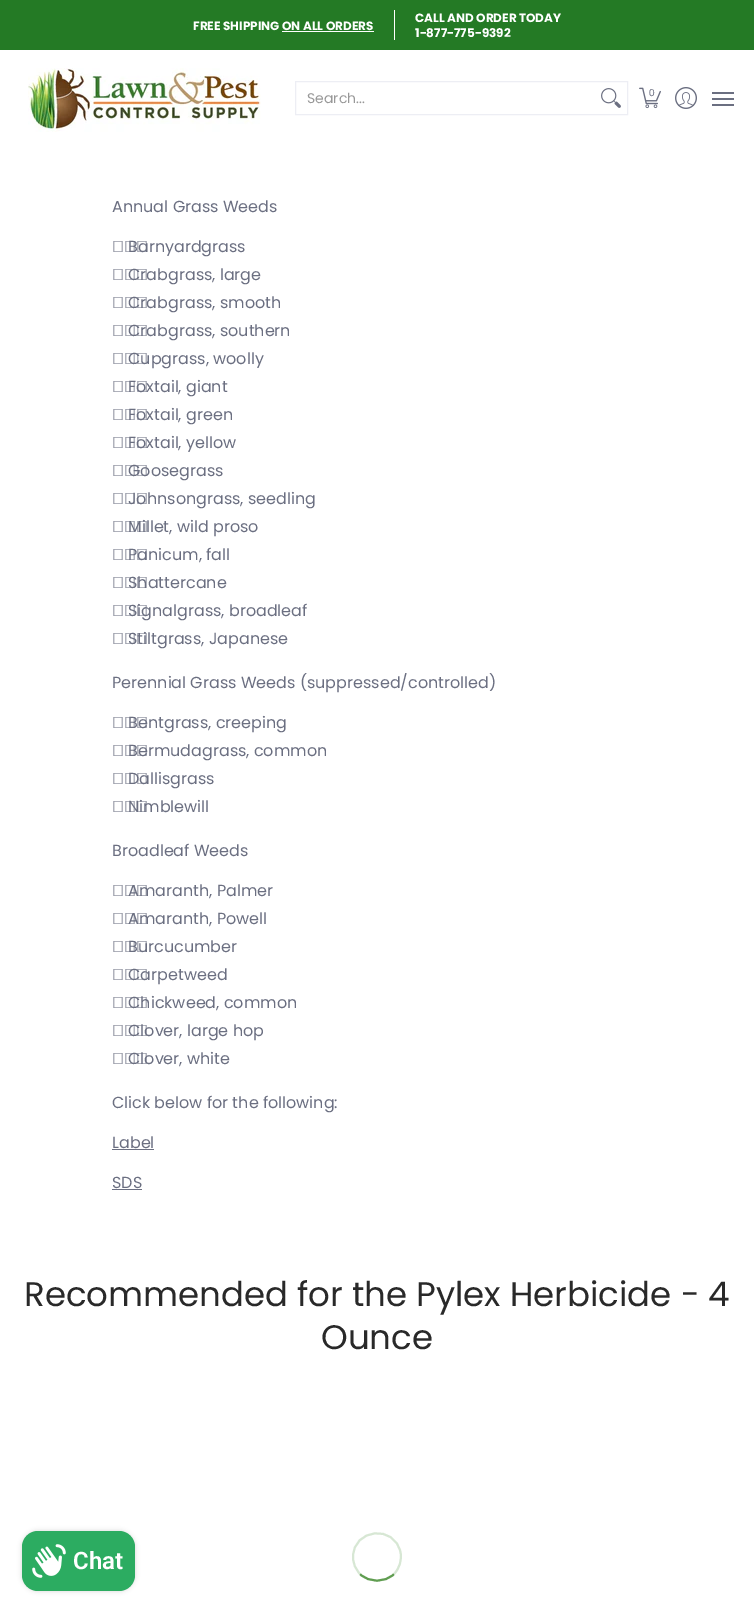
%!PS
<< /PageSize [754 1612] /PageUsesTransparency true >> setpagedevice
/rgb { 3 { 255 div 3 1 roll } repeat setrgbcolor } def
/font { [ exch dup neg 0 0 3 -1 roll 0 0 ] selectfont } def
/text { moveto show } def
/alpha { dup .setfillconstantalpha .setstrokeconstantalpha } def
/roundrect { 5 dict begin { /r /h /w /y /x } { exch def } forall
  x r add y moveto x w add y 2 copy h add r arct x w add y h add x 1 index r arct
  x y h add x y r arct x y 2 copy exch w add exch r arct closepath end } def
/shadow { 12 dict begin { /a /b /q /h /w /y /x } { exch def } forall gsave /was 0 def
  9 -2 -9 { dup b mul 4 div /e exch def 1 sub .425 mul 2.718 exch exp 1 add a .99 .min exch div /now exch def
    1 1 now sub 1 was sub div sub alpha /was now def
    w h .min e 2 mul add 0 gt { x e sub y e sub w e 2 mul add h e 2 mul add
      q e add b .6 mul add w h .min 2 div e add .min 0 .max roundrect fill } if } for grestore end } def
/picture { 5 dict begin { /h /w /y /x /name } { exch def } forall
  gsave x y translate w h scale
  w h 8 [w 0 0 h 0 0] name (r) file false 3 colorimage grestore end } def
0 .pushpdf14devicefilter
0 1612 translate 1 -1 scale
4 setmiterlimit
255 255 255 rgb
0 0 754 1612 rectfill
36 122 37 rgb
0 0 754 50 rectfill
255 255 255 rgb
282 31 92 1 rectfill
394 10 1 30 rectfill
(img_01.rgb) 28 68 233 64 picture
237 238 244 rgb
295.5 81.5 332 33 rectstroke
(img_02.rgb) 601 88 20 20 picture
(img_03.rgb) 639 87 22 22 picture
(img_04.rgb) 675 87 22 22 picture
107 111 129 rgb
712 92 22 2 rectfill
712 104 22 2 rectfill
712 98 22 2 rectfill
112 1149 42 1 rectfill
112 1189 30 1 rectfill
96 157 81 rgb
2 setlinewidth
394 1574 moveto -9.5 9 -24.5 9 -34 0 rcurveto stroke
215 231 212 rgb
360 1574 moveto -4.5 -4.5 -7 -10.5 -7 -17 rcurveto 0 -28.5 42 -33 47.5 -4.5 rcurveto 1.5 7.5 -1 16 -6.5 21.5 rcurveto stroke
0 0 0 rgb
22 1531 113 60 16 2.5 0.15 shadow
44 172 97 rgb
22 1531 113 60 16 roundrect fill
(img_05.rgb) 32 1544 34 34 picture
/Poppins-Bold 12 font
255 255 255 rgb
(FREE SHIPPING ON ALL ORDERS) 193 30 text
(CALL AND ORDER TODAY) 415 22 text
(1-877-775-9392) 415 37 text
/Poppins-Regular 14 font
152 152 152 rgb
(Search...) 307 103 text
/LiberationSans-Regular 10 font
107 111 129 rgb
(0) 649 96 text
/Poppins-Regular 16 font
(Annual Grass Weeds) 112 212 text
/LiberationSans-Regular 16 font
(‑) 112 252 text
/Poppins-Regular 16 font
(Barnyardgrass) 128 252 text
/LiberationSans-Regular 16 font
(‑) 112 280 text
/Poppins-Regular 16 font
(Crabgrass, large) 128 280 text
/LiberationSans-Regular 16 font
(‑) 112 308 text
/Poppins-Regular 16 font
(Crabgrass, smooth) 128 308 text
/LiberationSans-Regular 16 font
(‑) 112 336 text
/Poppins-Regular 16 font
(Crabgrass, southern) 128 336 text
/LiberationSans-Regular 16 font
(‑) 112 364 text
/Poppins-Regular 16 font
(Cupgrass, woolly) 128 364 text
/LiberationSans-Regular 16 font
(‑) 112 392 text
/Poppins-Regular 16 font
(Foxtail, giant) 128 392 text
/LiberationSans-Regular 16 font
(‑) 112 420 text
/Poppins-Regular 16 font
(Foxtail, green) 128 420 text
/LiberationSans-Regular 16 font
(‑) 112 448 text
/Poppins-Regular 16 font
(Foxtail, yellow) 128 448 text
/LiberationSans-Regular 16 font
(‑) 112 476 text
/Poppins-Regular 16 font
(Goosegrass) 128 476 text
/LiberationSans-Regular 16 font
(‑) 112 504 text
/Poppins-Regular 16 font
(Johnsongrass, seedling) 128 504 text
/LiberationSans-Regular 16 font
(‑) 112 532 text
/Poppins-Regular 16 font
(Millet, wild proso) 128 532 text
/LiberationSans-Regular 16 font
(‑) 112 560 text
/Poppins-Regular 16 font
(Panicum, fall) 128 560 text
/LiberationSans-Regular 16 font
(‑) 112 588 text
/Poppins-Regular 16 font
(Shattercane) 128 588 text
/LiberationSans-Regular 16 font
(‑) 112 616 text
/Poppins-Regular 16 font
(Signalgrass, broadleaf) 128 616 text
/LiberationSans-Regular 16 font
(‑) 112 644 text
/Poppins-Regular 16 font
(Stiltgrass, Japanese) 128 644 text
(Perennial Grass Weeds \(suppressed/controlled\)) 112 688 text
/LiberationSans-Regular 16 font
(‑) 112 728 text
/Poppins-Regular 16 font
(Bentgrass, creeping) 128 728 text
/LiberationSans-Regular 16 font
(‑) 112 756 text
/Poppins-Regular 16 font
(Bermudagrass, common) 128 756 text
/LiberationSans-Regular 16 font
(‑) 112 784 text
/Poppins-Regular 16 font
(Dallisgrass) 128 784 text
/LiberationSans-Regular 16 font
(‑) 112 812 text
/Poppins-Regular 16 font
(Nimblewill) 128 812 text
(Broadleaf Weeds) 112 856 text
/LiberationSans-Regular 16 font
(‑) 112 896 text
/Poppins-Regular 16 font
(Amaranth, Palmer) 128 896 text
/LiberationSans-Regular 16 font
(‑) 112 924 text
/Poppins-Regular 16 font
(Amaranth, Powell) 128 924 text
/LiberationSans-Regular 16 font
(‑) 112 952 text
/Poppins-Regular 16 font
(Burcucumber) 128 952 text
/LiberationSans-Regular 16 font
(‑) 112 980 text
/Poppins-Regular 16 font
(Carpetweed) 128 980 text
/LiberationSans-Regular 16 font
(‑) 112 1008 text
/Poppins-Regular 16 font
(Chickweed, common) 128 1008 text
/LiberationSans-Regular 16 font
(‑) 112 1036 text
/Poppins-Regular 16 font
(Clover, large hop) 128 1036 text
/LiberationSans-Regular 16 font
(‑) 112 1064 text
/Poppins-Regular 16 font
(Clover, white) 128 1064 text
(Click below for the following:) 112 1108 text
(Label) 112 1148 text
(SDS) 112 1188 text
/Poppins-Regular 34 font
41 41 41 rgb
(Recommended for the Pylex Herbicide - 4) 24 1306 text
(Ounce) 321 1349 text
/Roboto-SemiBold 24 font
255 255 255 rgb
(Chat) 73 1569 text
.poppdf14devicefilter showpage
